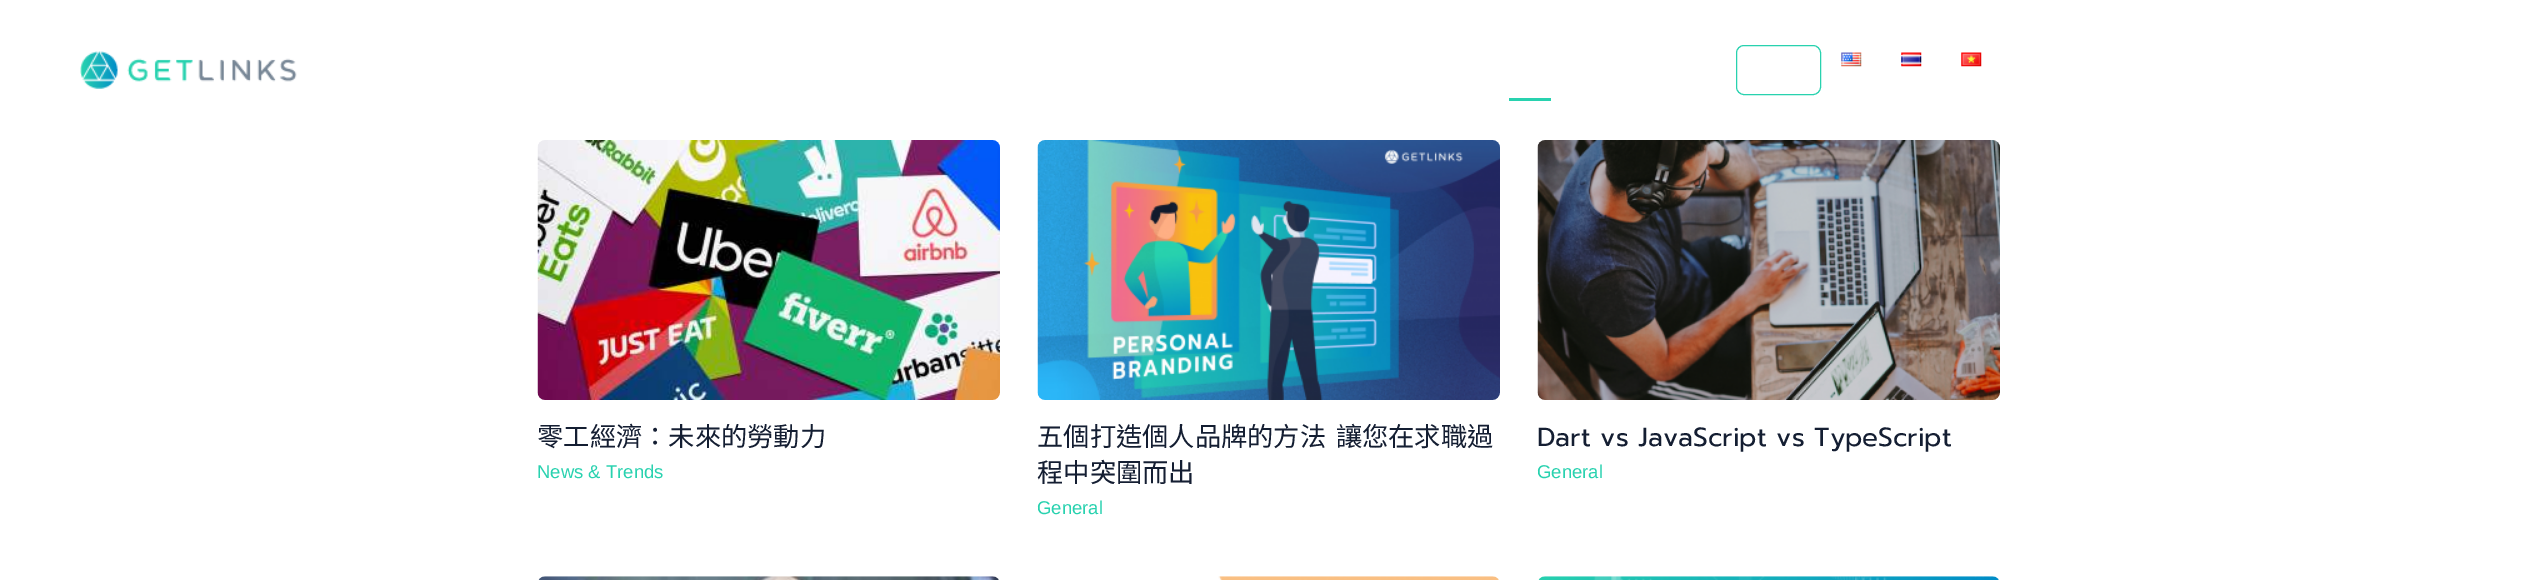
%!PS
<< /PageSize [2536 580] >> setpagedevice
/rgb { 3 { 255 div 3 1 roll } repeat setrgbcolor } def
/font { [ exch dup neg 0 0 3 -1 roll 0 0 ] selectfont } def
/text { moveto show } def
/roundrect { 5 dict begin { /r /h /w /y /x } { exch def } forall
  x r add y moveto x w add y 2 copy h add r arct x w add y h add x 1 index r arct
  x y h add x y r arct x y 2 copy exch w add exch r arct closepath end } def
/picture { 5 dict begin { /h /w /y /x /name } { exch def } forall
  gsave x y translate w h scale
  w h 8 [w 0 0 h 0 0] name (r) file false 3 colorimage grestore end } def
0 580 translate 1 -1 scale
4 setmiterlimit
255 255 255 rgb
0 0 2536 580 rectfill
(img_01.rgb) 80 51 217 38 picture
40 210 175 rgb
1736.5 45.5 84 49 7.5 roundrect stroke
(img_02.rgb) 1841 52 21 15 picture
(img_03.rgb) 1901 52 21 15 picture
(img_04.rgb) 1961 52 21 15 picture
1509 98 42 3 rectfill
(img_05.rgb) 537 140 463 260 picture
(img_06.rgb) 1037 140 463 260 picture
(img_07.rgb) 1537 140 463 260 picture
(img_08.rgb) 538 576 461 4 picture
(img_09.rgb) 1218 576 281 4 picture
(img_10.rgb) 1538 576 461 4 picture
/NotoSansCJKHK-Regular 26.25 font
20 30 50 rgb
(零工經濟：未來的勞動力) 537 446 text
/LiberationSans-Regular 18.5 font
40 210 175 rgb
(News & Trends) 537 478 text
/NotoSansCJKHK-Regular 26.25 font
20 30 50 rgb
1037 446 moveto 4 0 32 (五個打造個人品牌的方法 讓您在求職過) widthshow
(程中突圍而出) 1037 482 text
/LiberationSans-Regular 18.5 font
40 210 175 rgb
(General) 1037 514 text
/Prompt-Regular 26.25 font
20 30 50 rgb
(Dart vs JavaScript vs TypeScript) 1537 446 text
/LiberationSans-Regular 18.5 font
40 210 175 rgb
(General) 1537 478 text
showpage
